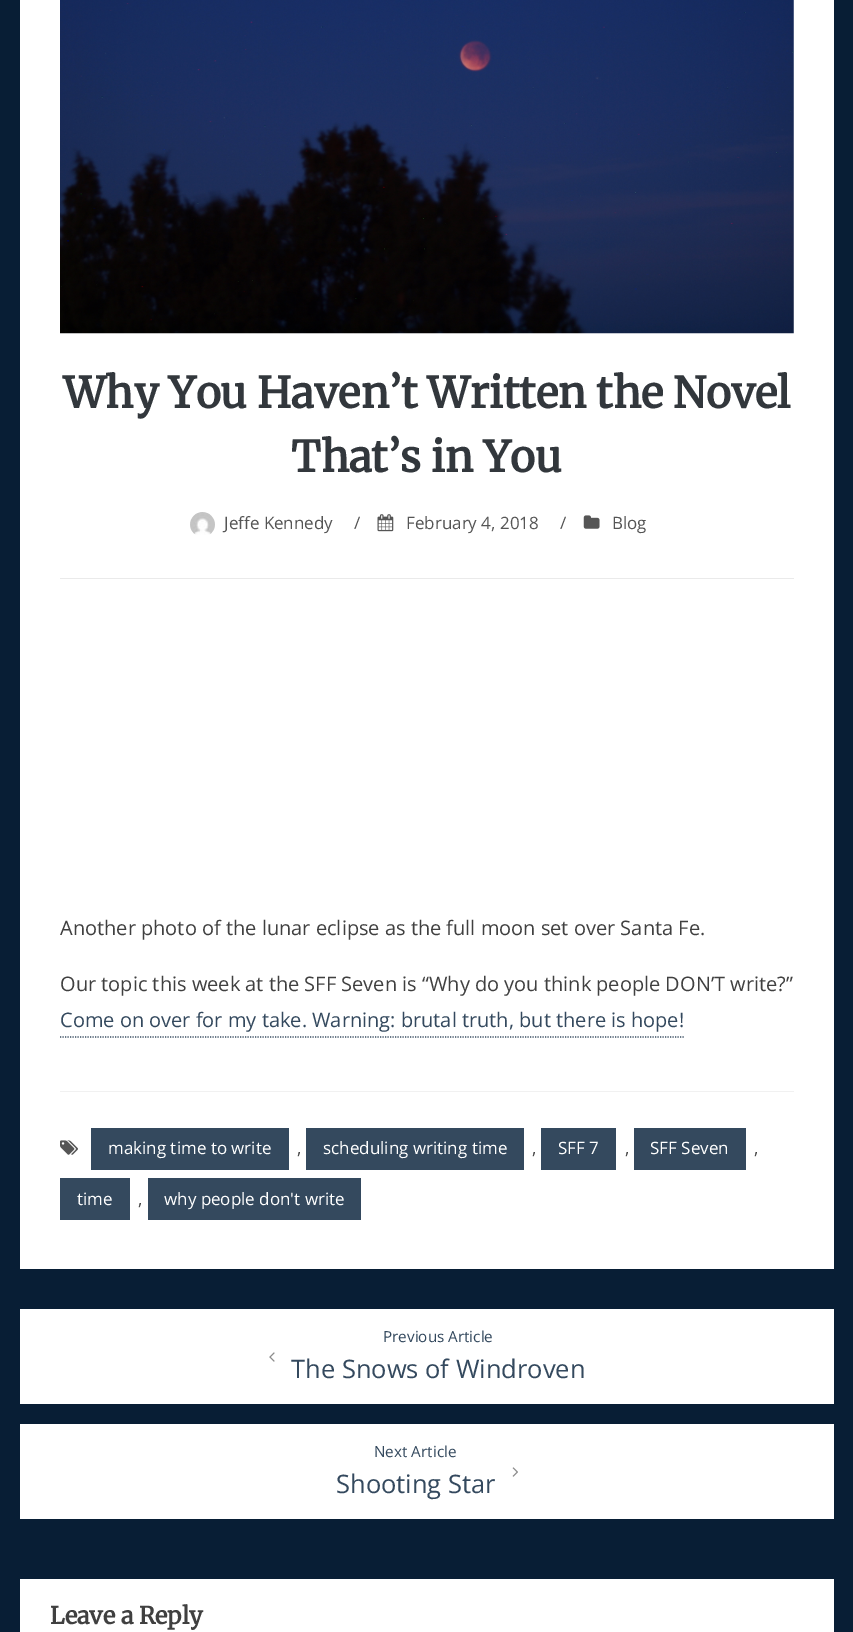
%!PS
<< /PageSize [853 1632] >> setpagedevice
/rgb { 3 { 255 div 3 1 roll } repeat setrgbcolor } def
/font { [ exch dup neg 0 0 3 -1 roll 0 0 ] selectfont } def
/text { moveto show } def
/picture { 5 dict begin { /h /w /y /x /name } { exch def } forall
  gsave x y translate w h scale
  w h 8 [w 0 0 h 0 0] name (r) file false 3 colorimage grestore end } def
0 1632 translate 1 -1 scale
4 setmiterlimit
8 30 53 rgb
0 0 853 1632 rectfill
255 255 255 rgb
20 0 814 1269 rectfill
234 234 234 rgb
60 578 734 1 rectfill
(img_01.rgb) 60 0 734 334 picture
(img_02.rgb) 190 512 25 23 picture
(img_03.rgb) 377 514 17 18 picture
(img_04.rgb) 583 515 17 14 picture
52 73 94 rgb
1.2 setlinewidth
[1.25 1.25] 0 setdash
60 1037 moveto 624 0 rlineto stroke
241 241 241 rgb
60 1091 734 1 rectfill
(img_05.rgb) 60 1140 18 15 picture
52 73 94 rgb
91 1128 198 42 rectfill
306 1128 218 42 rectfill
541 1128 75 42 rectfill
634 1128 112 42 rectfill
60 1178 70 42 rectfill
148 1178 213 42 rectfill
255 255 255 rgb
20 1309 814 95 rectfill
(img_06.rgb) 269 1352 6 10 picture
20 1424 814 95 rectfill
(img_07.rgb) 512 1467 6 10 picture
20 1579 814 53 rectfill
/Merriweather-Bold 42.5 font
50 55 60 rgb
(Why You Haven’t Written the Novel) 63 408 text
(That’s in You) 291 472 text
/OpenSans-Regular 17 font
85 85 85 rgb
(Jeffe Kennedy) 224 529 text
(/) 354 529 text
(February 4, 2018) 406 529 text
(/) 560 529 text
(Blog) 612 529 text
/OpenSans-Regular 20 font
64 64 64 rgb
(Another photo of the lunar eclipse as the full moon set over Santa Fe.) 60 935 text
(Our topic this week at the SFF Seven is “Why do you think people DON’T write?”) 60 991 text
52 73 94 rgb
(Come on over for my take. Warning: brutal truth, but there is hope!) 60 1027 text
/OpenSans-Regular 17 font
255 255 255 rgb
(making time to write) 108 1154 text
64 64 64 rgb
(,) 297 1154 text
255 255 255 rgb
(scheduling writing time) 323 1154 text
64 64 64 rgb
(,) 532 1154 text
255 255 255 rgb
(SFF 7) 558 1154 text
64 64 64 rgb
(,) 625 1154 text
255 255 255 rgb
(SFF Seven) 650 1154 text
64 64 64 rgb
(,) 754 1154 text
255 255 255 rgb
(time) 77 1205 text
64 64 64 rgb
(,) 138 1205 text
255 255 255 rgb
(why people don't write) 164 1205 text
/OpenSans-Regular 15.25 font
52 73 94 rgb
(Previous Article) 383 1342 text
/OpenSans-Regular 25.5 font
(The Snows of Windroven) 291 1378 text
/OpenSans-Regular 15.25 font
(Next Article) 374 1457 text
/OpenSans-Regular 25.5 font
(Shooting Star) 336 1493 text
/Merriweather-Bold 23.5 font
64 64 64 rgb
(Leave a Reply) 50 1624 text
showpage
